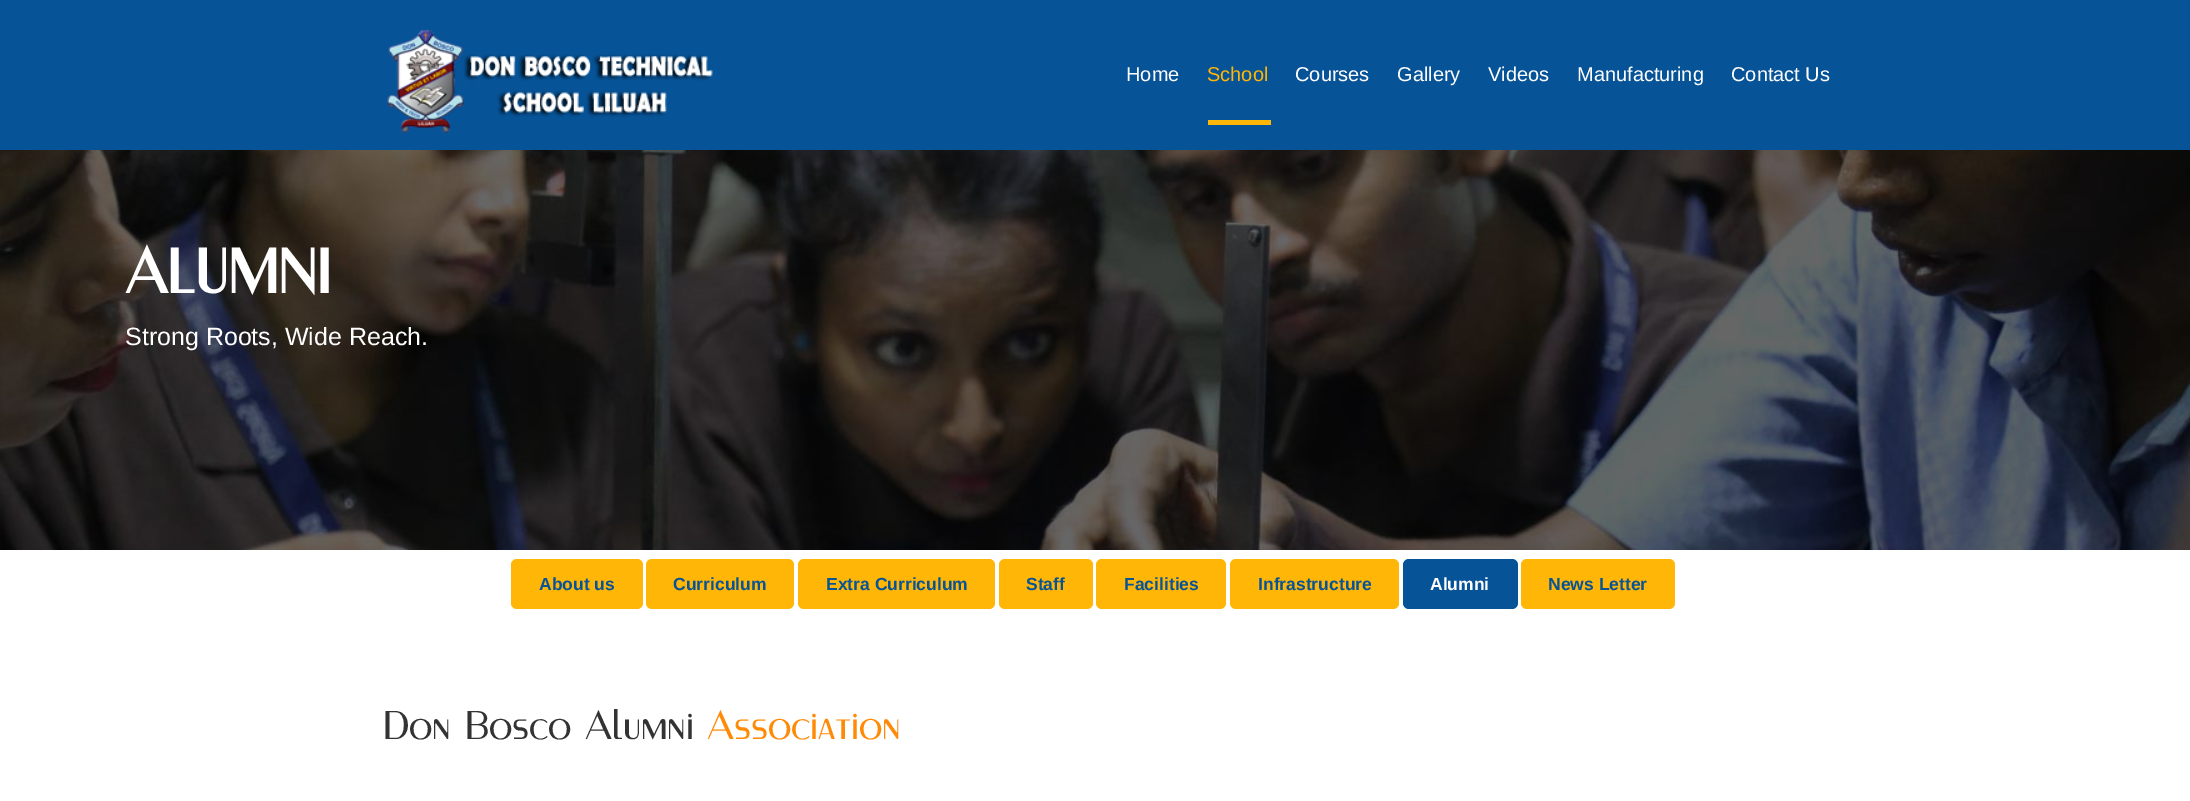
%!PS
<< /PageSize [2190 801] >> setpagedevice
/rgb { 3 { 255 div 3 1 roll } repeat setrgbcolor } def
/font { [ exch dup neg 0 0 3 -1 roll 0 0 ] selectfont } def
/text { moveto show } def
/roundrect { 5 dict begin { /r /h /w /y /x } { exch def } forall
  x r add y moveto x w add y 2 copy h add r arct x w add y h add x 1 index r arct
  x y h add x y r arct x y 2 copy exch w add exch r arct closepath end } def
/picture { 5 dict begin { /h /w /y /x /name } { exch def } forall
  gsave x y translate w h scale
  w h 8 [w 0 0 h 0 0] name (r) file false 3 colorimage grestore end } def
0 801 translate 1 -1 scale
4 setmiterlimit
255 255 255 rgb
0 0 2190 801 rectfill
6 83 151 rgb
0 0 2190 150 rectfill
(img_01.rgb) 387 29 326 104 picture
255 182 6 rgb
1208 120 63 5 rectfill
(img_02.rgb) 0 150 2190 400 picture
511 559 132 50 6 roundrect fill
646 559 148 50 6 roundrect fill
798 559 197 50 6 roundrect fill
999 559 94 50 6 roundrect fill
1096 559 130 50 6 roundrect fill
1230 559 169 50 6 roundrect fill
6 83 151 rgb
1403 559 115 50 6 roundrect fill
255 182 6 rgb
1521 559 154 50 6 roundrect fill
/LiberationSans-Regular 20 font
255 255 255 rgb
(Home) 1126 81 text
255 182 6 rgb
(School) 1207 81 text
255 255 255 rgb
(Courses) 1295 81 text
(Gallery) 1397 81 text
(Videos) 1488 81 text
(Manufacturing) 1577 81 text
(Contact Us) 1731 81 text
/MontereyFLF-Bold 62.5 font
(ALUMNI) 125 293 text
/LiberationSans-Regular 25 font
(Strong Roots, Wide Reach.) 125 345 text
/LiberationSans-Bold 17.5 font
6 83 151 rgb
(About us) 539 590 text
(Curriculum) 673 590 text
(Extra Curriculum) 826 590 text
(Staff) 1026 590 text
(Facilities) 1124 590 text
(Infrastructure) 1258 590 text
255 255 255 rgb
(Alumni) 1430 590 text
6 83 151 rgb
(News Letter) 1548 590 text
/MontereyFLF-Medium 40 font
51 51 51 rgb
(Don Bosco Alumni) 383 739 text
255 138 8 rgb
(Association) 707 739 text
showpage
